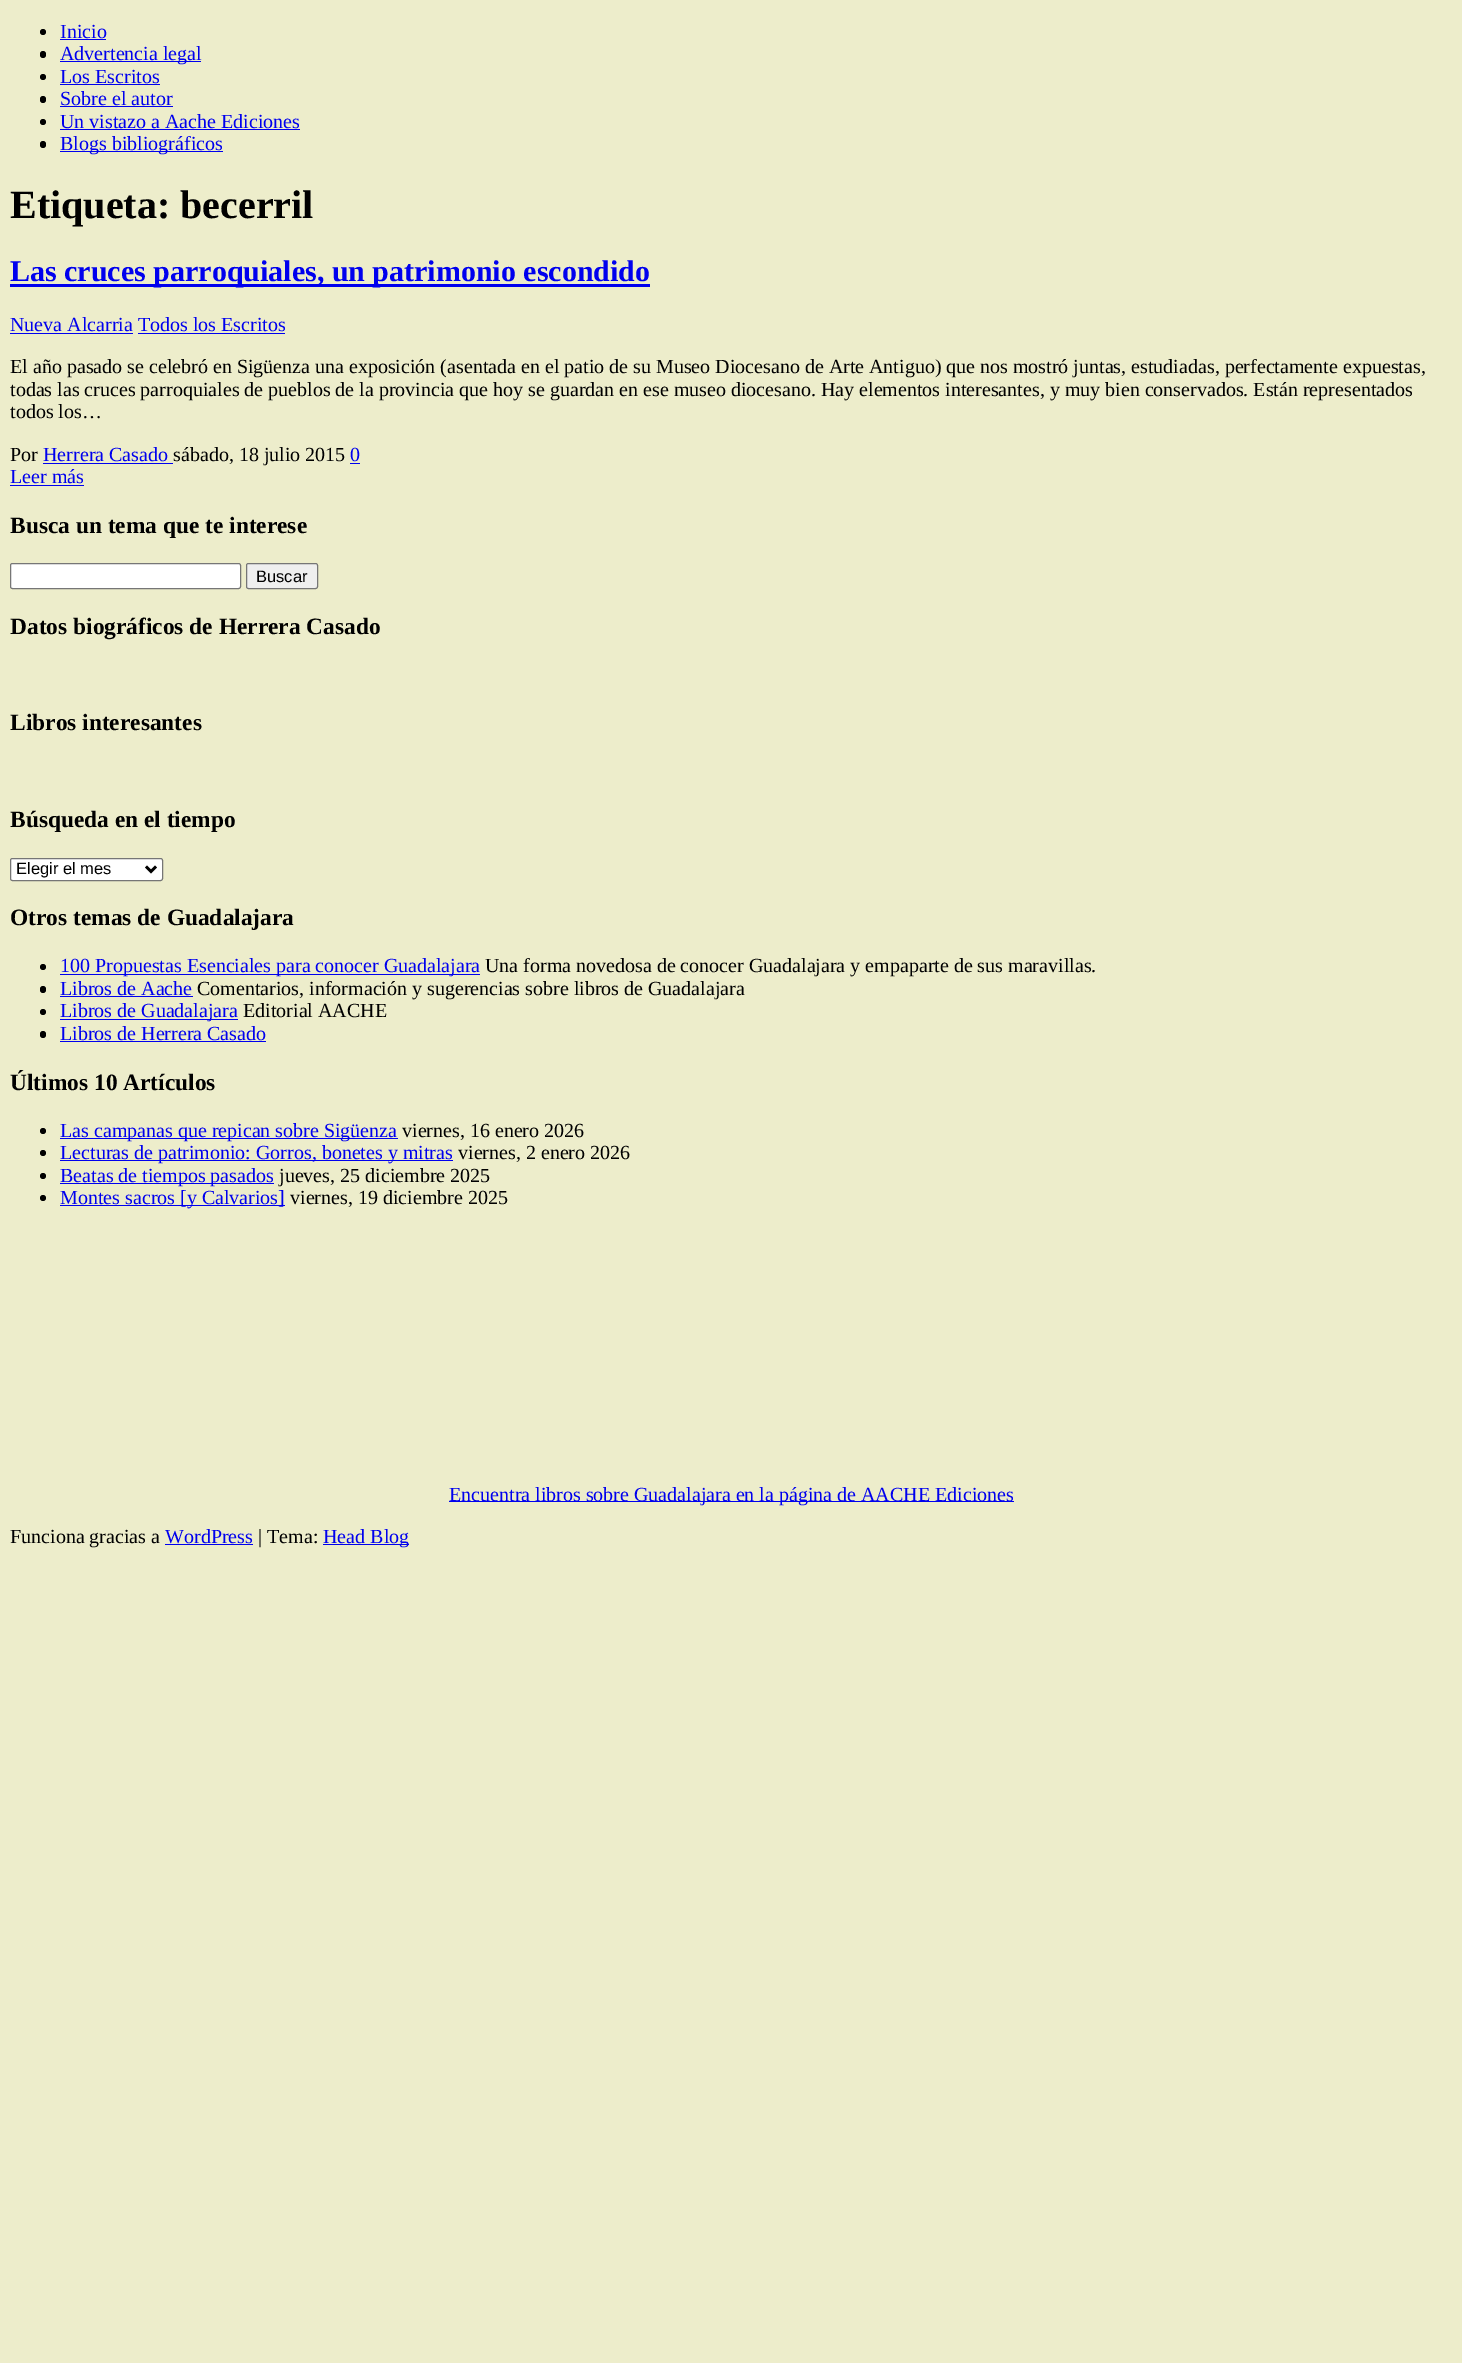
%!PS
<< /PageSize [1462 2363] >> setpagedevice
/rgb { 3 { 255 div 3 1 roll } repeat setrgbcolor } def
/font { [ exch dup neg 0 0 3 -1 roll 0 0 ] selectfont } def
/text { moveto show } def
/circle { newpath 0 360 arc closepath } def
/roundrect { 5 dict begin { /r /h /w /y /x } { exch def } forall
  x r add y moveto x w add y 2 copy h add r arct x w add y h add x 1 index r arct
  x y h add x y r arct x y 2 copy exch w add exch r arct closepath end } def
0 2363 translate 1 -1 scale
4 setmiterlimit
237 237 203 rgb
0 0 1462 2363 rectfill
0 0 0 rgb
43 32 3 circle fill
0 0 238 rgb
60 39 46 1 rectfill
0 0 0 rgb
40 51 6 7 3 roundrect fill
0 0 238 rgb
60 61 141 1 rectfill
0 0 0 rgb
43 77 3 circle fill
0 0 238 rgb
60 84 100 1 rectfill
0 0 0 rgb
40 96 6 7 3 roundrect fill
0 0 238 rgb
60 106 113 1 rectfill
0 0 0 rgb
43 122 3 circle fill
0 0 238 rgb
60 129 240 1 rectfill
0 0 0 rgb
40 141 6 7 3 roundrect fill
0 0 238 rgb
60 151 163 1 rectfill
10 284 640 3 rectfill
10 333 123 1 rectfill
138 333 147 1 rectfill
43 463 130 1 rectfill
350 463 10 1 rectfill
10 485 74 1 rectfill
255 255 255 rgb
10.5 563.5 230 25 2 roundrect gsave fill grestore
118 118 118 rgb
stroke
239 239 239 rgb
246.5 563.5 71 25 2 roundrect gsave fill grestore
118 118 118 rgb
stroke
255 255 255 rgb
10.5 858.5 152 22 2 roundrect gsave fill grestore
118 118 118 rgb
stroke
0 0 0 rgb
2.5 setlinewidth
146 866.5 moveto 5 5 rlineto 5 -5 rlineto stroke
43 967 3 circle fill
0 0 238 rgb
60 974 420 1 rectfill
0 0 0 rgb
40 986 6 7 3 roundrect fill
0 0 238 rgb
60 996 133 1 rectfill
0 0 0 rgb
43 1012 3 circle fill
0 0 238 rgb
60 1019 178 1 rectfill
0 0 0 rgb
40 1031 6 7 3 roundrect fill
0 0 238 rgb
60 1041 206 1 rectfill
0 0 0 rgb
43 1131 3 circle fill
0 0 238 rgb
60 1138 338 1 rectfill
0 0 0 rgb
43 1153 3 circle fill
0 0 238 rgb
60 1160 393 1 rectfill
0 0 0 rgb
43 1176 3 circle fill
0 0 238 rgb
60 1183 214 1 rectfill
0 0 0 rgb
43 1198 3 circle fill
0 0 238 rgb
60 1205 225 1 rectfill
449 1501 565 1 rectfill
165 1544 88 1 rectfill
323 1544 86 1 rectfill
/LiberationSerif-Regular 20 font
(Inicio) 60 38 text
(Advertencia legal) 60 60 text
(Los Escritos) 60 83 text
(Sobre el autor) 60 105 text
(Un vistazo a Aache Ediciones) 60 128 text
(Blogs bibliográficos) 60 150 text
/LiberationSerif-Bold 40 font
0 0 0 rgb
(Etiqueta: becerril) 10 218 text
/LiberationSerif-Bold 30 font
0 0 238 rgb
(Las cruces parroquiales, un patrimonio escondido) 10 281 text
/LiberationSerif-Regular 20 font
(Nueva Alcarria Todos los Escritos) 10 331 text
0 0 0 rgb
(El año pasado se celebró en Sigüenza una exposición \(asentada en el patio de su Museo Diocesano de Arte Antiguo\) que nos mostró juntas, estudiadas, perfectamente expuestas,) 10 373 text
(todas las cruces parroquiales de pueblos de la provincia que hoy se guardan en ese museo diocesano. Hay elementos interesantes, y muy bien conservados. Están representados) 10 396 text
(todos los…) 10 418 text
(Por) 10 461 text
0 0 238 rgb
(Herrera Casado) 43 461 text
0 0 0 rgb
(sábado, 18 julio 2015) 173 461 text
0 0 238 rgb
(0) 350 461 text
(Leer más) 10 483 text
/LiberationSerif-Bold 23.4 font
0 0 0 rgb
(Busca un tema que te interese) 10 533 text
/LiberationSans-Regular 16.5 font
(Buscar) 256 582 text
/LiberationSerif-Bold 23.4 font
(Datos biográficos de Herrera Casado) 10 634 text
(Libros interesantes) 10 730 text
(Búsqueda en el tiempo) 10 827 text
/LiberationSans-Regular 16.5 font
(Elegir el mes) 16 874 text
/LiberationSerif-Bold 23.4 font
(Otros temas de Guadalajara) 10 925 text
/LiberationSerif-Regular 20 font
0 0 238 rgb
(100 Propuestas Esenciales para conocer Guadalajara) 60 972 text
0 0 0 rgb
(Una forma novedosa de conocer Guadalajara y empaparte de sus maravillas.) 485 972 text
0 0 238 rgb
(Libros de Aache) 60 995 text
0 0 0 rgb
(Comentarios, información y sugerencias sobre libros de Guadalajara) 197 995 text
0 0 238 rgb
(Libros de Guadalajara) 60 1017 text
0 0 0 rgb
(Editorial AACHE) 243 1017 text
0 0 238 rgb
(Libros de Herrera Casado) 60 1040 text
/LiberationSerif-Bold 23.4 font
0 0 0 rgb
(Últimos 10 Artículos) 10 1090 text
/LiberationSerif-Regular 20 font
0 0 238 rgb
(Las campanas que repican sobre Sigüenza) 60 1137 text
0 0 0 rgb
(viernes, 16 enero 2026) 402 1137 text
0 0 238 rgb
(Lecturas de patrimonio: Gorros, bonetes y mitras) 60 1159 text
0 0 0 rgb
(viernes, 2 enero 2026) 458 1159 text
0 0 238 rgb
(Beatas de tiempos pasados) 60 1182 text
0 0 0 rgb
(jueves, 25 diciembre 2025) 279 1182 text
0 0 238 rgb
(Montes sacros [y Calvarios]) 60 1204 text
0 0 0 rgb
(viernes, 19 diciembre 2025) 290 1204 text
0 0 238 rgb
(Encuentra libros sobre Guadalajara en la página de AACHE Ediciones) 449 1501 text
0 0 0 rgb
(Funciona gracias a) 10 1543 text
0 0 238 rgb
(WordPress) 165 1543 text
0 0 0 rgb
(| Tema:) 258 1543 text
0 0 238 rgb
(Head Blog) 323 1543 text
showpage
